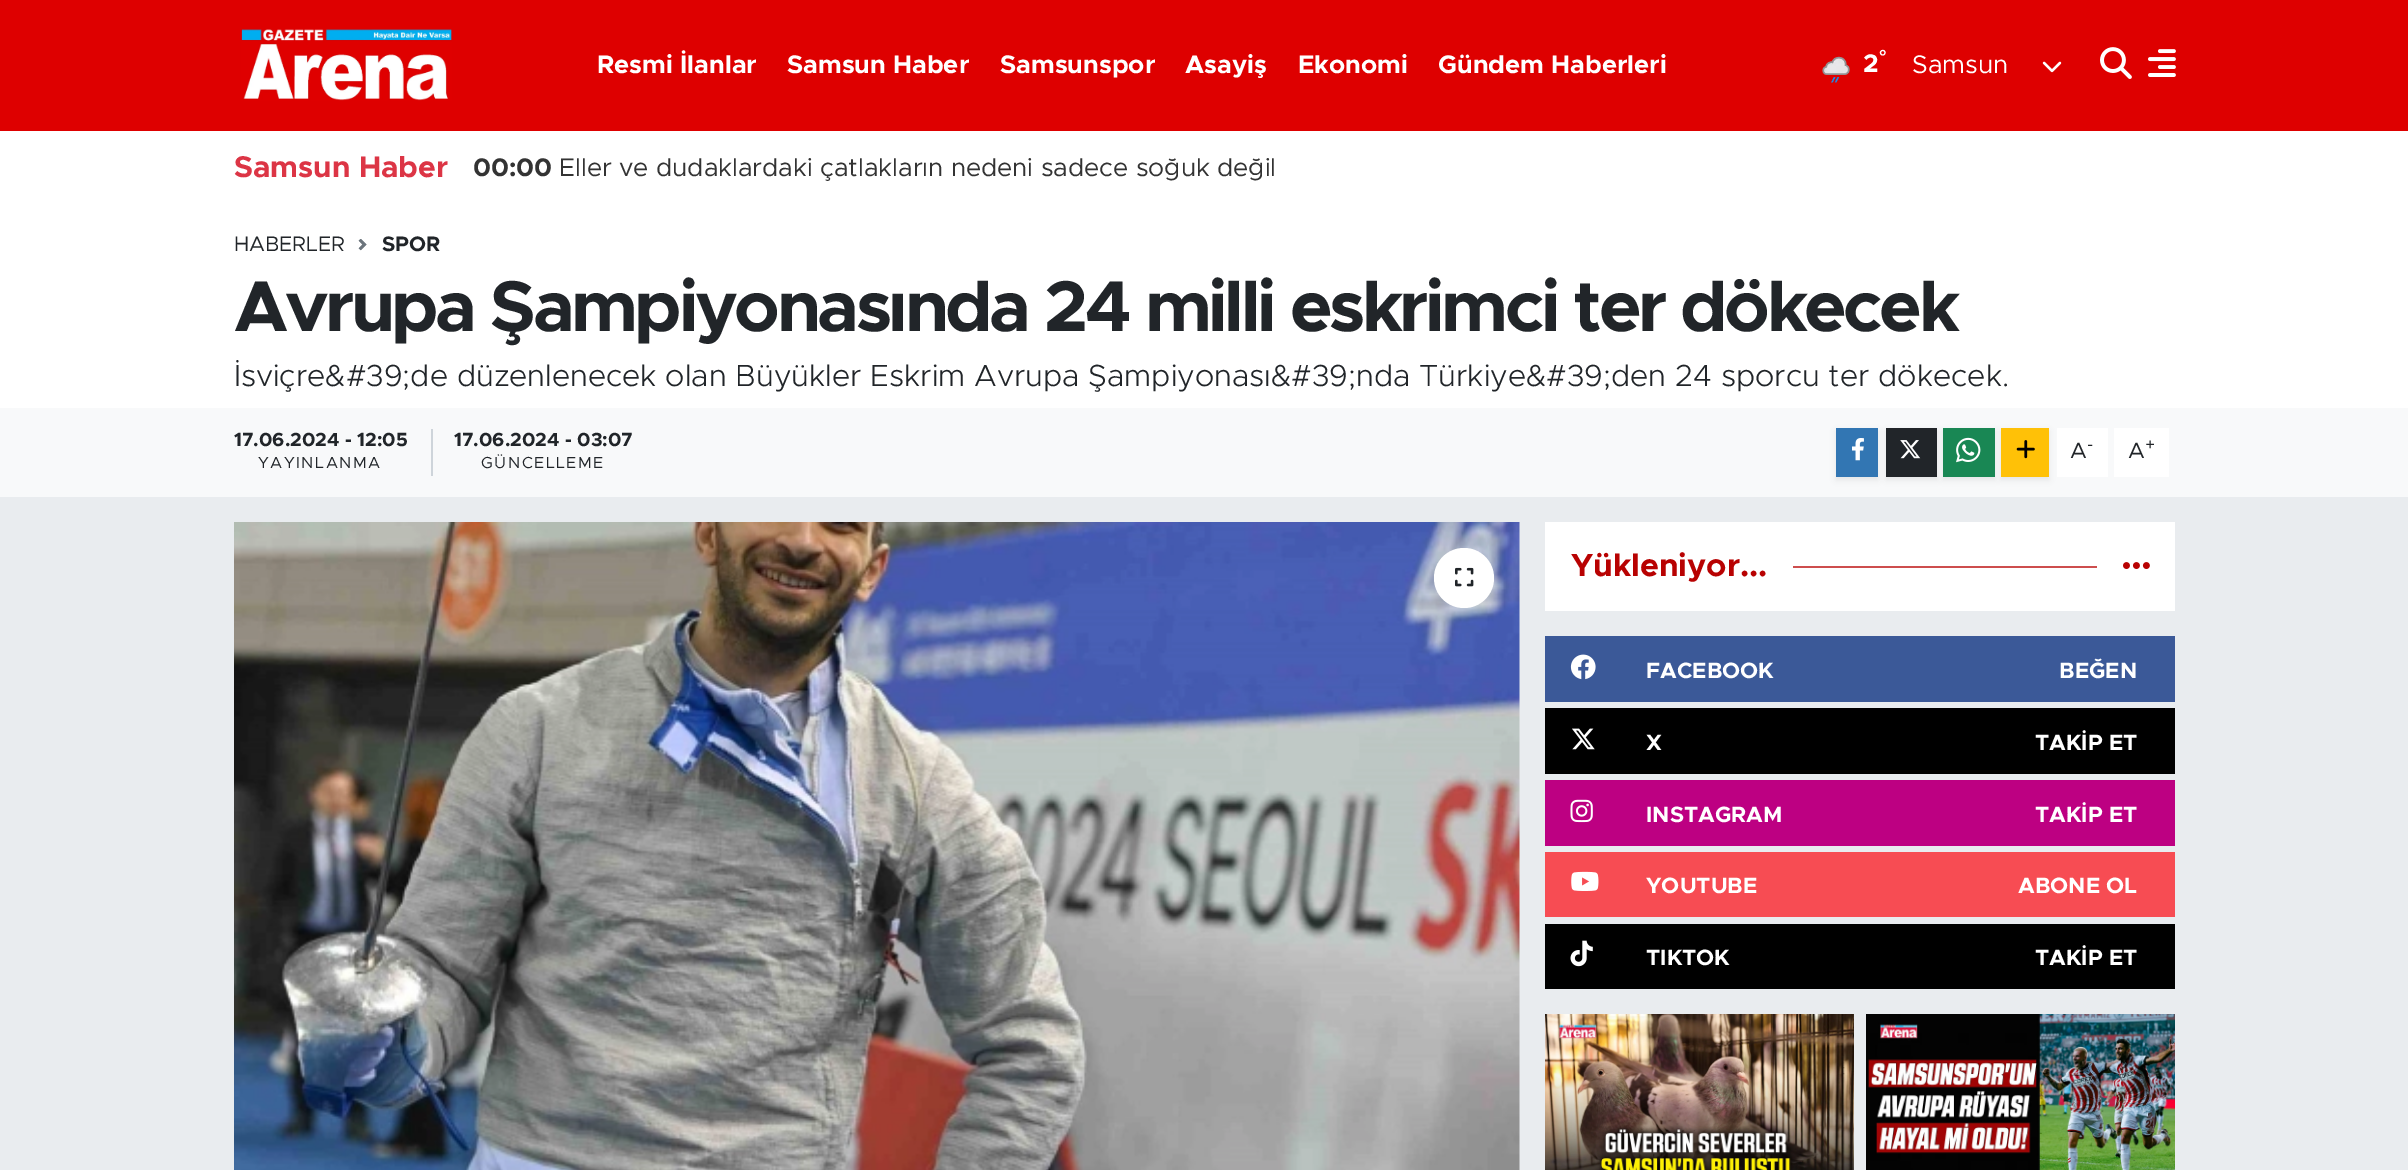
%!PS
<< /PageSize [2408 1170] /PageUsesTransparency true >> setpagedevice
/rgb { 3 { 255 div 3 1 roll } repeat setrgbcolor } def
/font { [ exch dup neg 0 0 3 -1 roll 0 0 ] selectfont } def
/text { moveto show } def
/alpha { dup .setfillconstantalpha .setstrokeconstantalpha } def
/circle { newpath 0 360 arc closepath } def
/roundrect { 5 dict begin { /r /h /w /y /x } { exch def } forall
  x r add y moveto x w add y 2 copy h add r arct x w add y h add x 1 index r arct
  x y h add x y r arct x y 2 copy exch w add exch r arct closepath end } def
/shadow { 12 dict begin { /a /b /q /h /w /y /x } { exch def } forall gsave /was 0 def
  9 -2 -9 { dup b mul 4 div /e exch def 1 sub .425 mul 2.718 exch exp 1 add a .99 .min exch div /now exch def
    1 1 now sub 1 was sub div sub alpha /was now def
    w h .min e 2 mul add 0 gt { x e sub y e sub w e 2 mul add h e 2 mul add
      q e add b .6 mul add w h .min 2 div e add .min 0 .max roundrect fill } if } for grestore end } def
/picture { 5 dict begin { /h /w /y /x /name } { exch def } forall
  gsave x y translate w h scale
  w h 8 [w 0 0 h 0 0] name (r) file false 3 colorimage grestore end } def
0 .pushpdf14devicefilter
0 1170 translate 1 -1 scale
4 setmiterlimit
233 236 239 rgb
0 0 2408 1170 rectfill
222 0 0 rgb
0 0 2408 131 rectfill
(img_01.rgb) 241 29 211 72 picture
(img_02.rgb) 1822 56 28 27 picture
(img_03.rgb) 2042 61 20 12 picture
(img_04.rgb) 2100 47 32 32 picture
(img_05.rgb) 2148 49 28 28 picture
255 255 255 rgb
0 131 2408 277 rectfill
(img_06.rgb) 358 239 9 12 picture
248 249 250 rgb
0 408 2408 89 rectfill
206 212 218 rgb
431 429 2 47 rectfill
0 0 0 rgb
1836 431 42 49 0 3 0.07 shadow
50 118 179 rgb
1836 428 42 49 rectfill
(img_07.rgb) 1852 438 12 23 picture
0 0 0 rgb
1886 431 51 49 0 3 0.07 shadow
33 37 41 rgb
1886 428 51 49 rectfill
(img_08.rgb) 1900 440 21 19 picture
0 0 0 rgb
1943 431 52 49 0 3 0.07 shadow
25 135 84 rgb
1943 428 52 49 rectfill
(img_09.rgb) 1956 437 25 26 picture
255 255 255 rgb
2057 428 51 49 rectfill
0 0 0 rgb
2001 431 48 49 0 3 0.07 shadow
255 193 7 rgb
2001 428 48 49 rectfill
(img_10.rgb) 2016 440 19 19 picture
255 255 255 rgb
2114 428 55 49 rectfill
(img_11.rgb) 234 522 1286 648 picture
1464 578 30 circle fill
(img_12.rgb) 1455 567 19 20 picture
1545 522 630 89 rectfill
205 78 78 rgb
1793 566 304 2 rectfill
(img_13.rgb) 2123 562 27 7 picture
59 89 152 rgb
1545 636 630 66 rectfill
(img_14.rgb) 1570 654 26 26 picture
0 0 0 rgb
1545 708 630 66 rectfill
(img_15.rgb) 1572 728 23 22 picture
189 0 130 rgb
1545 780 630 66 rectfill
(img_16.rgb) 1570 799 23 24 picture
247 76 83 rgb
1545 852 630 65 rectfill
(img_17.rgb) 1571 871 28 20 picture
0 0 0 rgb
1545 924 630 65 rectfill
(img_18.rgb) 1570 940 23 27 picture
(img_19.rgb) 1545 1014 309 156 picture
(img_20.rgb) 1866 1014 309 156 picture
/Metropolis-Bold 25.5 font
255 255 255 rgb
(Resmi İlanlar) 597 73 text
(Samsun Haber) 787 73 text
(Samsunspor) 1000 73 text
(Asayiş) 1185 73 text
(Ekonomi) 1298 73 text
(Gündem Haberleri) 1438 73 text
/LiberationSans-Bold 19.1 font
(°) 1879 63 text
/Metropolis-Bold 25.5 font
(2) 1863 72 text
/Metropolis-Regular 25.5 font
(Samsun) 1912 73 text
/Metropolis-Bold 30 font
220 53 69 rgb
(Samsun Haber) 234 177 text
/Metropolis-Bold 25.5 font
51 51 51 rgb
(00:00) 473 176 text
/Metropolis-Regular 25.5 font
(Eller ve dudaklardaki çatlakların nedeni sadece soğuk değil) 559 176 text
/Metropolis-Regular 21 font
33 37 41 rgb
(HABERLER) 234 251 text
/Metropolis-Bold 21 font
(SPOR) 382 251 text
/Metropolis-Bold 72 font
234 331 moveto -3.45 0 (Avrupa Şampiyonasında 24 milli eskrimci ter dökecek) ashow
/Metropolis-Light 30.6 font
(İsviçre&#39;de düzenlenecek olan Büyükler Eskrim Avrupa Şampiyonası&#39;nda Türkiye&#39;den 24 sporcu ter dökecek.) 234 386 text
/Metropolis-Bold 19.1 font
(17.06.2024 - 12:05) 234 446 text
/Metropolis-Regular 16 font
258 468 moveto 1.5 0 (YAYINLANMA) ashow
/Metropolis-Bold 19.1 font
(17.06.2024 - 03:07) 454 446 text
/Metropolis-Regular 16 font
481 468 moveto 1.5 0 (GÜNCELLEME) ashow
/Metropolis-Regular 22.25 font
(A) 2070 458 text
/Metropolis-Regular 17 font
(-) 2087 450 text
/Metropolis-Regular 22.25 font
(A) 2128 458 text
/Metropolis-Regular 17 font
(+) 2145 450 text
/Metropolis-Bold 32 font
184 2 2 rgb
(Yükleniyor...) 1571 576 text
/Metropolis-Bold 22.25 font
255 255 255 rgb
(FACEBOOK) 1646 678 text
(BEĞEN) 2059 678 text
(X) 1646 750 text
(TAKİP ET) 2035 750 text
(INSTAGRAM) 1646 822 text
(TAKİP ET) 2035 822 text
(YOUTUBE) 1646 893 text
(ABONE OL) 2018 893 text
(TIKTOK) 1646 965 text
(TAKİP ET) 2035 965 text
.poppdf14devicefilter showpage
